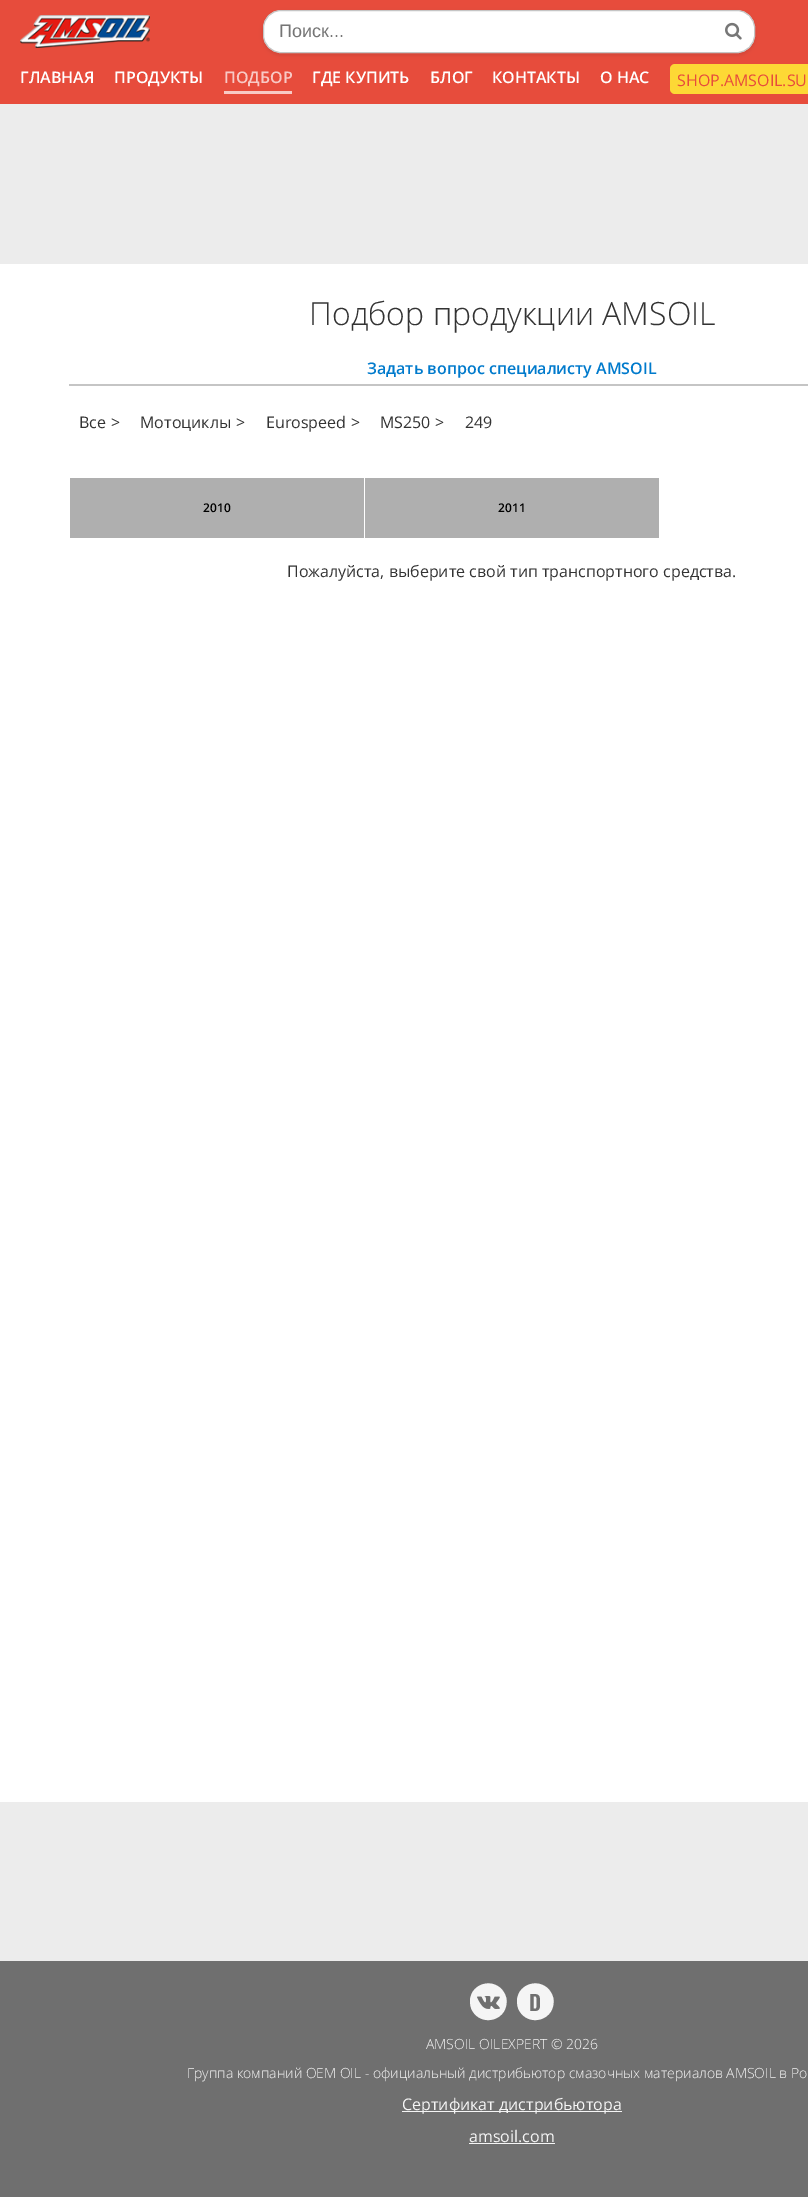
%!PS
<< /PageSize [808 2197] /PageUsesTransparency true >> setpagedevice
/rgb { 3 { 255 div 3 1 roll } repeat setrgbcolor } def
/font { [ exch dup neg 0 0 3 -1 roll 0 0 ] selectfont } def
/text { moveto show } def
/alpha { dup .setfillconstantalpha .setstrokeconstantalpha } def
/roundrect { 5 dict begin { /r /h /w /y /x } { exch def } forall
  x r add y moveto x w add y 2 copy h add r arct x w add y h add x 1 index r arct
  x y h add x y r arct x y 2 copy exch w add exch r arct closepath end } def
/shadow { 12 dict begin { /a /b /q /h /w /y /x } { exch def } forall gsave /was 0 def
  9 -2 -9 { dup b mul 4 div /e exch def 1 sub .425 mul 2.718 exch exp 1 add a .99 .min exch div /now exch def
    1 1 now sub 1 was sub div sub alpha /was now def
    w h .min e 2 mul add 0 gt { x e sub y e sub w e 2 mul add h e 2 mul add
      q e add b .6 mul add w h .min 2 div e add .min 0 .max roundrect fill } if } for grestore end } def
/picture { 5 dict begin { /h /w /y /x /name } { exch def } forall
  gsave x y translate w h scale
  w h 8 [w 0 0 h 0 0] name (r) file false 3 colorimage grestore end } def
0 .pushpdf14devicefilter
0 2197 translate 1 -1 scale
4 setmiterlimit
236 236 236 rgb
0 0 808 2197 rectfill
231 76 60 rgb
0 0 808 104 rectfill
(img_01.rgb) 20 15 130 33 picture
0 0 0 rgb
263 12 492 43 18 2 0.1 shadow
255 255 255 rgb
263.5 10.5 491 42 17.5 roundrect gsave fill grestore
197 197 197 rgb
stroke
(img_02.rgb) 725 22 17 18 picture
248 201 197 rgb
224 91 68 3 rectfill
253 216 53 rgb
670 64 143 30 5 roundrect fill
255 255 255 rgb
0 264 808 1538 rectfill
197 197 197 rgb
69 384 739 2 rectfill
175 175 175 rgb
70 478 294 60 rectfill
365 478 294 60 rectfill
111 111 111 rgb
0 1961 808 236 rectfill
245 245 245 rgb
504 1992.5 moveto 2 3 3 7 2.5 10.5 rcurveto -1 18 -25 23.5 -34 8 rcurveto -2 -3 -2.5 -7 -2.5 -10.5 rcurveto 1 -18 25 -23.5 34 -8 rcurveto closepath fill
(img_03.rgb) 477 1996 23 13 picture
551 1992.5 moveto 2 3 3 7 2.5 10.5 rcurveto -1 18 -25 23.5 -34 8 rcurveto -2 -3 -2.5 -7 -2.5 -10.5 rcurveto 1 -18 25 -23.5 34 -8 rcurveto closepath fill
402 2111 220 1 rectfill
469 2143 86 1 rectfill
/LiberationSans-Regular 18 font
117 117 117 rgb
(Поиск...) 279 37 text
/OpenSans-SemiBold 16 font
255 255 255 rgb
(ГЛАВНАЯ) 20 83 text
(ПРОДУКТЫ) 114 83 text
248 201 197 rgb
(ПОДБОР) 224 83 text
255 255 255 rgb
(ГДЕ КУПИТЬ) 312 83 text
(БЛОГ) 430 83 text
(КОНТАКТЫ) 492 83 text
(О НАС) 600 83 text
/OpenSans-Regular 16 font
231 76 60 rgb
(SHOP.AMSOIL.SU) 677 86 text
/OpenSans-Light 32 font
51 51 51 rgb
(Подбор продукции AMSOIL) 309 325 text
/OpenSans-SemiBold 16 font
0 122 204 rgb
(Задать вопрос специалисту AMSOIL) 367 374 text
/OpenSans-Regular 16 font
51 51 51 rgb
(Все) 79 428 text
(>) 111 428 text
(Мотоциклы) 140 428 text
(>) 236 428 text
(Eurospeed) 266 428 text
(>) 351 428 text
(MS250) 380 428 text
(>) 435 428 text
(249) 465 428 text
/OpenSans-SemiBold 12 font
0 0 0 rgb
(2010) 203 512 text
(2011) 498 512 text
/OpenSans-Regular 16 font
51 51 51 rgb
(Пожалуйста, выберите свой тип транспортного средства.) 287 577 text
/Oswald-SemiBold 21 font
111 111 111 rgb
(D) 529 2011 text
/OpenSans-Light 14 font
245 245 245 rgb
(AMSOIL OILEXPERT © 2026) 426 2049 text
(Группа компаний OEM OIL - официальный дистрибьютор смазочных материалов AMSOIL в Ро) 187 2078 text
/OpenSans-Regular 16 font
(Сертификат дистрибьютора) 402 2110 text
(amsoil.com) 469 2142 text
.poppdf14devicefilter showpage
